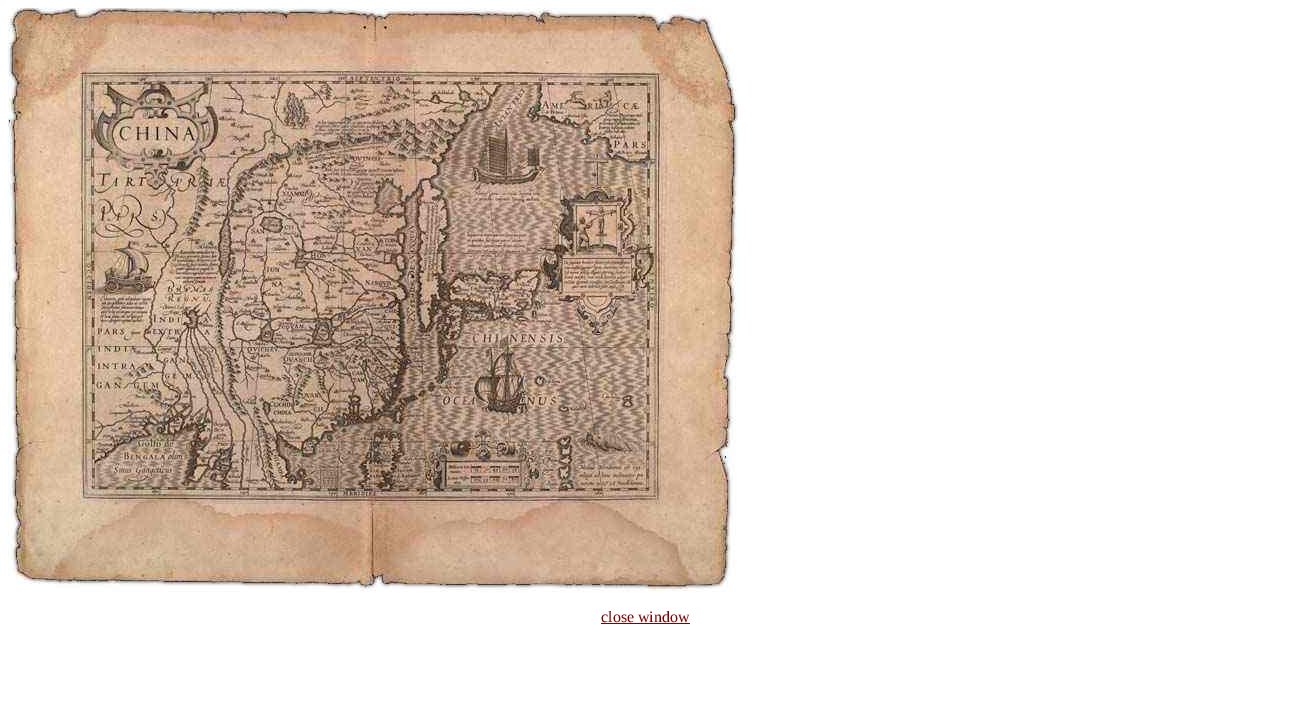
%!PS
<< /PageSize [1291 719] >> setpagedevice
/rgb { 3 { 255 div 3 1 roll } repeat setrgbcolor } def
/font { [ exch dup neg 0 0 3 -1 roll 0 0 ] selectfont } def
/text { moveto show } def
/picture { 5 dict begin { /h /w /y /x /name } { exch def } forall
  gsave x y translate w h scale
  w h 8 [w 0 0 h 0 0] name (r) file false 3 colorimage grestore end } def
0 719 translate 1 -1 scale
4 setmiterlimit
255 255 255 rgb
0 0 1291 719 rectfill
(img_01.rgb) 8 8 730 584 picture
128 0 0 rgb
601 623 89 1 rectfill
/LiberationSerif-Regular 16 font
(close window) 601 622 text
showpage
